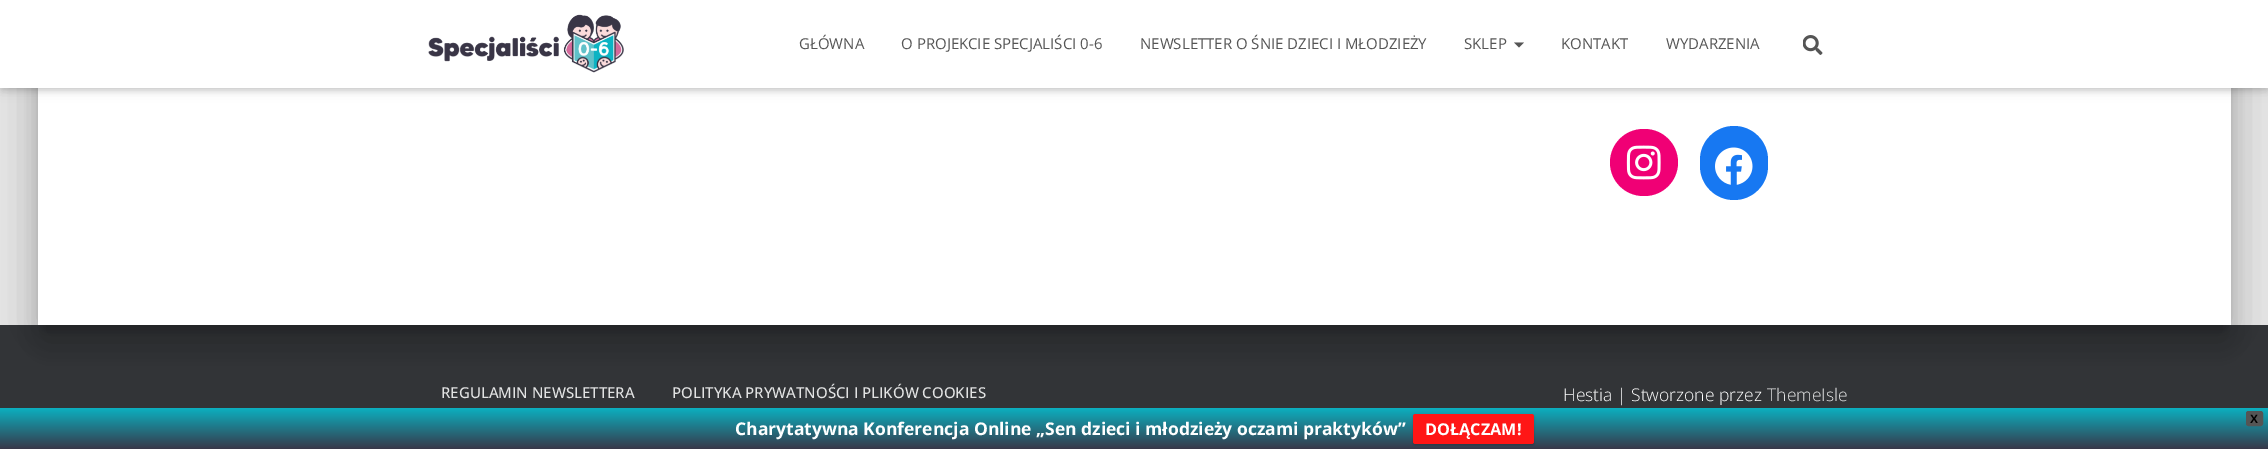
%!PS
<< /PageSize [2268 449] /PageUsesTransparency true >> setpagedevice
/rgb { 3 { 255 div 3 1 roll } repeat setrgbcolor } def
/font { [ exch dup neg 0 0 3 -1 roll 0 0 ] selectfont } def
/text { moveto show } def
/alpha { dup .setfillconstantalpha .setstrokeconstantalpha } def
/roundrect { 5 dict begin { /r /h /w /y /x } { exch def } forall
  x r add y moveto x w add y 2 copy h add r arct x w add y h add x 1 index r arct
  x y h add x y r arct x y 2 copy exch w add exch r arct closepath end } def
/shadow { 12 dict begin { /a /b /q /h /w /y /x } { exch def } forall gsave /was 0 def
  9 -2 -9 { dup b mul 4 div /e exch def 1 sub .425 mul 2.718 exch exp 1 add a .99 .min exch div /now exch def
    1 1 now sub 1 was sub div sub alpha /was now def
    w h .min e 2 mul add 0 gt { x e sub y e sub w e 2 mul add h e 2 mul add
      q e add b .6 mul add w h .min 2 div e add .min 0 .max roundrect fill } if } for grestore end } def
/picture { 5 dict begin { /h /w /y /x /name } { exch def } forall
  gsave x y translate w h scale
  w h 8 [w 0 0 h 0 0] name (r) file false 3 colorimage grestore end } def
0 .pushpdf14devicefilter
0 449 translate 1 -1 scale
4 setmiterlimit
229 229 229 rgb
0 0 2268 449 rectfill
50 52 55 rgb
0 325 2268 83 rectfill
0 0 0 rgb
44 -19 2181 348 1 6 0.2 shadow
31 -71 2207 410 14 19 0.12 shadow
35 -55 2199 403 10 15 0.14 shadow
255 255 255 rgb
38 88 2193 237 rectfill
240 0 117 rgb
1610 129 68 67 33.5 roundrect fill
(img_01.rgb) 1626 145 35 35 picture
23 120 242 rgb
1700 126 68 74 34 roundrect fill
(img_02.rgb) 1715 147 38 38 picture
0 0 0 rgb
3 8 2263 82 0 3 0.1 shadow
0 1 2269 88 0 6 0.12 shadow
8 9 2253 72 0 6 0.42 shadow
255 255 255 rgb
0 0 2268 88 rectfill
(img_03.rgb) 428 14 196 59 picture
85 85 85 rgb
1514 42.5 moveto 10 0 rlineto -5 5 rlineto closepath fill
(img_04.rgb) 1803 35 20 20 picture
gsave 0 408 moveto 2268 0 rlineto 0 41 rlineto -2268 0 rlineto closepath clip newpath
<< /ShadingType 2 /ColorSpace /DeviceRGB /Coords [1134 407 1134 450] /Extend [true true] /Function << /FunctionType 2 /Domain [0 1] /C0 [0.043 0.702 0.765] /C1 [0.224 0.208 0.275] /N 1 >> >> shfill grestore
2246.5 411.5 16 14 2 roundrect gsave fill grestore
stroke
0 0 0 rgb
1413 415 121 30 2.5 1 0.2 shadow
255 22 22 rgb
1413 414 121 30 2.5 roundrect fill
/OpenSans-Regular 15 font
85 85 85 rgb
(GŁÓWNA) 799 49 text
(O PROJEKCIE SPECJALIŚCI 0-6) 901 49 text
(NEWSLETTER O ŚNIE DZIECI I MŁODZIEŻY) 1140 49 text
(SKLEP) 1464 49 text
(KONTAKT) 1561 49 text
(WYDARZENIA) 1666 49 text
/OpenSans-Medium 15 font
226 227 227 rgb
(REGULAMIN NEWSLETTERA) 441 398 text
(POLITYKA PRYWATNOŚCI I PLIKÓW COOKIES) 672 398 text
/OpenSans-Light 17.5 font
255 255 255 rgb
(Hestia | Stworzone przez) 1563 401 text
226 227 227 rgb
(ThemeIsle) 1767 401 text
/LiberationSans-Bold 12 font
0 0 0 rgb
(X) 2250 423 text
/OpenSans-Bold 17.5 font
255 255 255 rgb
(Charytatywna Konferencja Online „Sen dzieci i młodzieży oczami praktyków”) 735 435 text
/OpenSans-Bold 16.25 font
(DOŁĄCZAM!) 1425 435 text
.poppdf14devicefilter showpage
